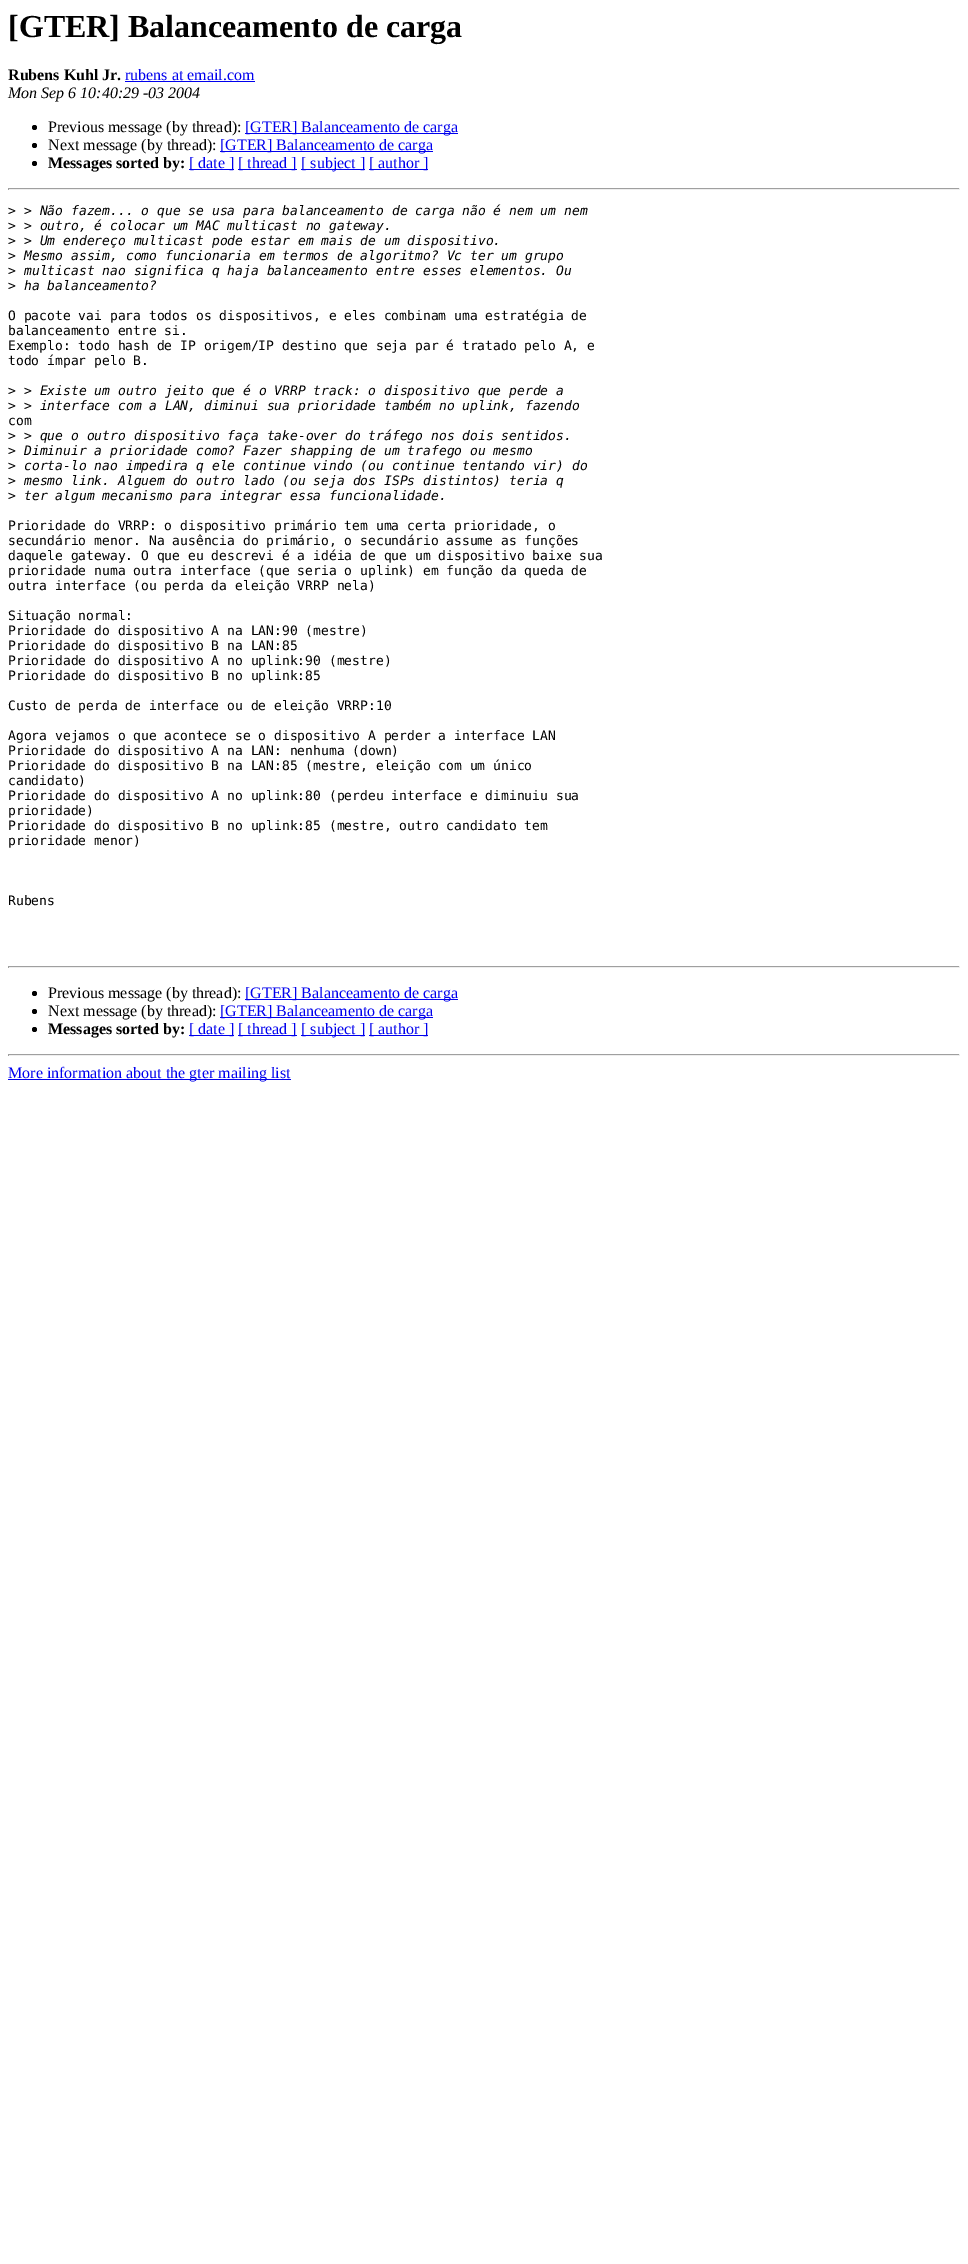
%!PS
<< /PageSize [968 2264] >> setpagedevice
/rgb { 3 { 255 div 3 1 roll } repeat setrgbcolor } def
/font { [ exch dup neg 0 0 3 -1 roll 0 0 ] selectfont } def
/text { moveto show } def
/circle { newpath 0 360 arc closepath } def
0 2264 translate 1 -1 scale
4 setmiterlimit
255 255 255 rgb
0 0 968 2264 rectfill
0 0 238 rgb
125 81 130 1 rectfill
0 0 0 rgb
34.5 127.5 2.5 circle fill
0 0 238 rgb
245 133 213 1 rectfill
0 0 0 rgb
34.5 145.5 2.5 circle fill
0 0 238 rgb
220 151 213 1 rectfill
0 0 0 rgb
34.5 163.5 2.5 circle fill
0 0 238 rgb
189 169 45 1 rectfill
238 169 59 1 rectfill
301 169 64 1 rectfill
369 169 59 1 rectfill
159 159 159 rgb
8 188 952 1 rectfill
238 238 238 rgb
959 188 1 2 rectfill
8 189 952 1 rectfill
159 159 159 rgb
8 188 1 2 rectfill
8 966 952 1 rectfill
238 238 238 rgb
959 966 1 2 rectfill
8 967 952 1 rectfill
159 159 159 rgb
8 966 1 2 rectfill
0 0 0 rgb
34.5 993.5 2.5 circle fill
0 0 238 rgb
245 999 213 1 rectfill
0 0 0 rgb
34.5 1011.5 2.5 circle fill
0 0 238 rgb
220 1017 213 1 rectfill
0 0 0 rgb
34.5 1029.5 2.5 circle fill
0 0 238 rgb
189 1035 45 1 rectfill
238 1035 59 1 rectfill
301 1035 64 1 rectfill
369 1035 59 1 rectfill
159 159 159 rgb
8 1054 952 1 rectfill
238 238 238 rgb
959 1054 1 2 rectfill
8 1055 952 1 rectfill
159 159 159 rgb
8 1054 1 2 rectfill
0 0 238 rgb
8 1079 283 1 rectfill
/LiberationSerif-Bold 32 font
0 0 0 rgb
([GTER] Balanceamento de carga) 8 37 text
/LiberationSerif-Bold 16 font
(Rubens Kuhl Jr.) 8 80 text
/LiberationSerif-Regular 16 font
0 0 238 rgb
(rubens at email.com) 125 80 text
/LiberationSerif-Italic 16 font
0 0 0 rgb
(Mon Sep 6 10:40:29 -03 2004) 8 98 text
/LiberationSerif-Regular 16 font
(Previous message \(by thread\):) 48 132 text
0 0 238 rgb
([GTER] Balanceamento de carga) 245 132 text
0 0 0 rgb
(Next message \(by thread\):) 48 150 text
0 0 238 rgb
([GTER] Balanceamento de carga) 220 150 text
/LiberationSerif-Bold 16 font
0 0 0 rgb
(Messages sorted by:) 48 168 text
/LiberationSerif-Regular 16 font
0 0 238 rgb
([ date ]) 189 168 text
([ thread ]) 238 168 text
([ subject ]) 301 168 text
([ author ]) 369 168 text
/DejaVuSansMono-Regular 13 font
0 0 0 rgb
(>) 8 215 text
/DejaVuSansMono-Italic 13 font
(> Não fazem... o que se usa para balanceamento de carga não é nem um nem) 24 215 text
/DejaVuSansMono-Regular 13 font
(>) 8 230 text
/DejaVuSansMono-Italic 13 font
(> outro, é colocar um MAC multicast no gateway.) 24 230 text
/DejaVuSansMono-Regular 13 font
(>) 8 245 text
/DejaVuSansMono-Italic 13 font
(> Um endereço multicast pode estar em mais de um dispositivo.) 24 245 text
/DejaVuSansMono-Regular 13 font
(>) 8 260 text
/DejaVuSansMono-Italic 13 font
(Mesmo assim, como funcionaria em termos de algoritmo? Vc ter um grupo) 24 260 text
/DejaVuSansMono-Regular 13 font
(>) 8 275 text
/DejaVuSansMono-Italic 13 font
(multicast nao significa q haja balanceamento entre esses elementos. Ou) 24 275 text
/DejaVuSansMono-Regular 13 font
(>) 8 290 text
/DejaVuSansMono-Italic 13 font
(ha balanceamento?) 24 290 text
/DejaVuSansMono-Regular 13 font
(O pacote vai para todos os dispositivos, e eles combinam uma estratégia de) 8 320 text
(balanceamento entre si.) 8 335 text
(Exemplo: todo hash de IP origem/IP destino que seja par é tratado pelo A, e) 8 350 text
(todo ímpar pelo B.) 8 365 text
(>) 8 395 text
/DejaVuSansMono-Italic 13 font
(> Existe um outro jeito que é o VRRP track: o dispositivo que perde a) 24 395 text
/DejaVuSansMono-Regular 13 font
(>) 8 410 text
/DejaVuSansMono-Italic 13 font
(> interface com a LAN, diminui sua prioridade também no uplink, fazendo) 24 410 text
/DejaVuSansMono-Regular 13 font
(com) 8 425 text
(>) 8 440 text
/DejaVuSansMono-Italic 13 font
(> que o outro dispositivo faça take-over do tráfego nos dois sentidos.) 24 440 text
/DejaVuSansMono-Regular 13 font
(>) 8 455 text
/DejaVuSansMono-Italic 13 font
(Diminuir a prioridade como? Fazer shapping de um trafego ou mesmo) 24 455 text
/DejaVuSansMono-Regular 13 font
(>) 8 470 text
/DejaVuSansMono-Italic 13 font
(corta-lo nao impedira q ele continue vindo \(ou continue tentando vir\) do) 24 470 text
/DejaVuSansMono-Regular 13 font
(>) 8 485 text
/DejaVuSansMono-Italic 13 font
(mesmo link. Alguem do outro lado \(ou seja dos ISPs distintos\) teria q) 24 485 text
/DejaVuSansMono-Regular 13 font
(>) 8 500 text
/DejaVuSansMono-Italic 13 font
(ter algum mecanismo para integrar essa funcionalidade.) 24 500 text
/DejaVuSansMono-Regular 13 font
(Prioridade do VRRP: o dispositivo primário tem uma certa prioridade, o) 8 530 text
(secundário menor. Na ausência do primário, o secundário assume as funções) 8 545 text
(daquele gateway. O que eu descrevi é a idéia de que um dispositivo baixe sua) 8 560 text
(prioridade numa outra interface \(que seria o uplink\) em função da queda de) 8 575 text
(outra interface \(ou perda da eleição VRRP nela\)) 8 590 text
(Situação normal:) 8 620 text
(Prioridade do dispositivo A na LAN:90 \(mestre\)) 8 635 text
(Prioridade do dispositivo B na LAN:85) 8 650 text
(Prioridade do dispositivo A no uplink:90 \(mestre\)) 8 665 text
(Prioridade do dispositivo B no uplink:85) 8 680 text
(Custo de perda de interface ou de eleição VRRP:10) 8 710 text
(Agora vejamos o que acontece se o dispositivo A perder a interface LAN) 8 740 text
(Prioridade do dispositivo A na LAN: nenhuma \(down\)) 8 755 text
(Prioridade do dispositivo B na LAN:85 \(mestre, eleição com um único) 8 770 text
(candidato\)) 8 785 text
(Prioridade do dispositivo A no uplink:80 \(perdeu interface e diminuiu sua) 8 800 text
(prioridade\)) 8 815 text
(Prioridade do dispositivo B no uplink:85 \(mestre, outro candidato tem) 8 830 text
(prioridade menor\)) 8 845 text
(Rubens) 8 905 text
/LiberationSerif-Regular 16 font
(Previous message \(by thread\):) 48 998 text
0 0 238 rgb
([GTER] Balanceamento de carga) 245 998 text
0 0 0 rgb
(Next message \(by thread\):) 48 1016 text
0 0 238 rgb
([GTER] Balanceamento de carga) 220 1016 text
/LiberationSerif-Bold 16 font
0 0 0 rgb
(Messages sorted by:) 48 1034 text
/LiberationSerif-Regular 16 font
0 0 238 rgb
([ date ]) 189 1034 text
([ thread ]) 238 1034 text
([ subject ]) 301 1034 text
([ author ]) 369 1034 text
(More information about the gter mailing list) 8 1078 text
showpage
